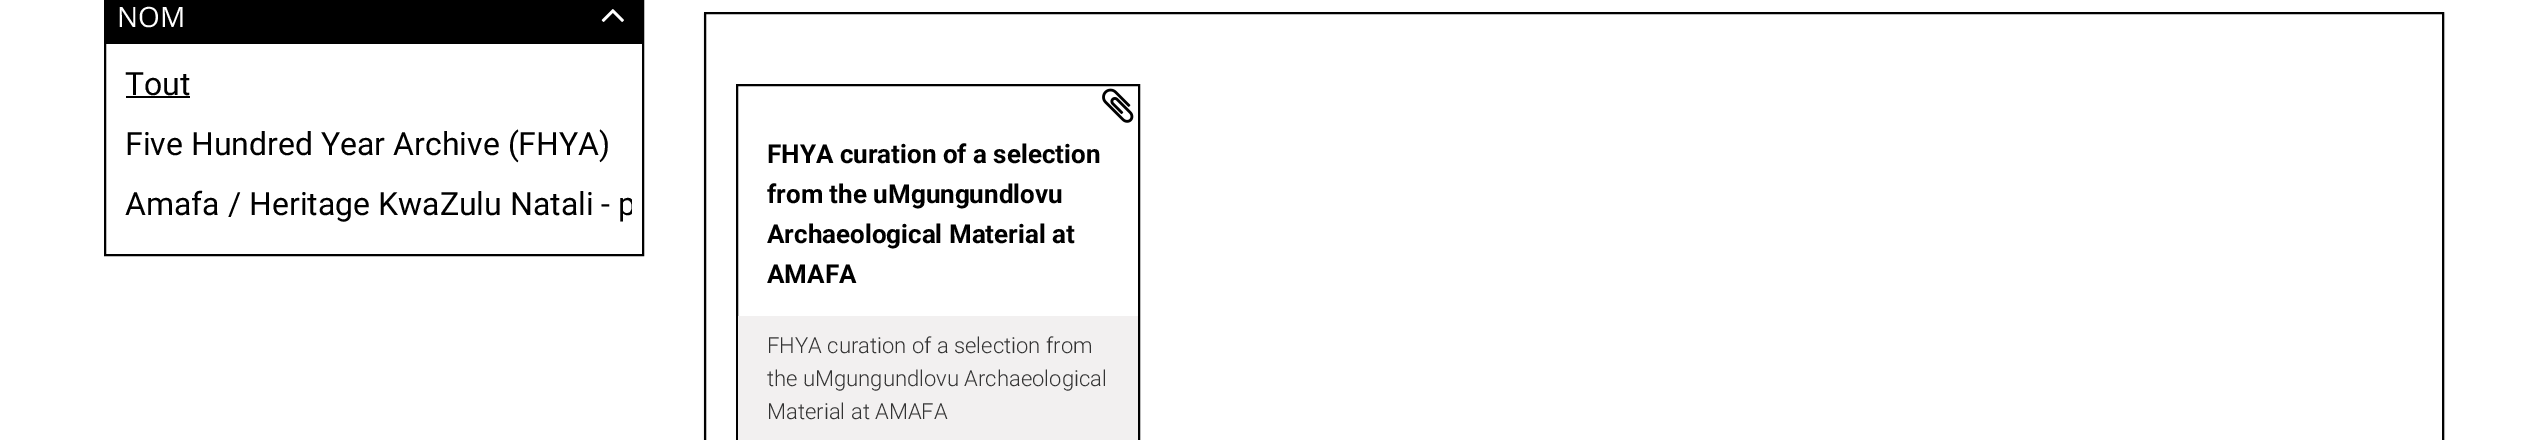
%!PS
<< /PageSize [2546 440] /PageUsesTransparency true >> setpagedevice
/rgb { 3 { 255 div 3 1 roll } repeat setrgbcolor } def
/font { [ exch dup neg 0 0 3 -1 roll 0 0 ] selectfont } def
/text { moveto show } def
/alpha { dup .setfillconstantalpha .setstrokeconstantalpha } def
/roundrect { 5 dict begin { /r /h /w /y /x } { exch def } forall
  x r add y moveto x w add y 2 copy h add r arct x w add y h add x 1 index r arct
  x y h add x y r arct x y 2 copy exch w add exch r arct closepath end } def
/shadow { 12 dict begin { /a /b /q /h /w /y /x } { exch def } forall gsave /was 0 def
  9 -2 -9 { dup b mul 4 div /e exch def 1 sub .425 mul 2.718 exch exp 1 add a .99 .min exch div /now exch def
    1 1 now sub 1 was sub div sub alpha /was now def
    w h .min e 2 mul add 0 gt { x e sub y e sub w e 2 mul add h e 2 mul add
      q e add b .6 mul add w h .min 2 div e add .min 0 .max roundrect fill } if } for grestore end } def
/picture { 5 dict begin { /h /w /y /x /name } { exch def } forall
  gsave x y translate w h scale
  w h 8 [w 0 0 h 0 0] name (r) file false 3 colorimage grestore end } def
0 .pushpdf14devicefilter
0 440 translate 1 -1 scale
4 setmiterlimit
255 255 255 rgb
0 0 2546 440 rectfill
0 0 0 rgb
2 setlinewidth
105 -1 538 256 rectstroke
106 0 536 44 rectfill
(img_01.rgb) 601 9 23 13 picture
126 96 64 2 rectfill
gsave
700 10 moveto 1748 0 rlineto 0 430 rlineto -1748 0 rlineto closepath 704 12 moveto 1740 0 rlineto 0 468 rlineto -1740 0 rlineto closepath eoclip newpath
704 14 1740 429 0 1 0.2 shadow
grestore
705 13 1738 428 rectstroke
737 85 402 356 rectstroke
242 240 240 rgb
738 316 400 124 rectfill
(img_02.rgb) 1102 88 32 35 picture
/OpenSans-Regular 28 font
255 255 255 rgb
(NOM) 117 27 text
/Roboto-Regular 32 font
0 0 0 rgb
(Tout) 125 95 text
(Five Hundred Year Archive \(FHYA\)) 125 155 text
gsave
116 174 516 60 rectclip
(Amafa / Heritage KwaZulu Natali - p) 125 215 text
grestore
/Roboto-Bold 26 font
(FHYA curation of a selection) 767 163 text
(from the uMgungundlovu) 767 203 text
(Archaeological Material at) 767 243 text
(AMAFA) 767 283 text
/Roboto-Light 22 font
51 51 51 rgb
(FHYA curation of a selection from) 767 353 text
(the uMgungundlovu Archaeological) 767 386 text
(Material at AMAFA) 767 419 text
.poppdf14devicefilter showpage
